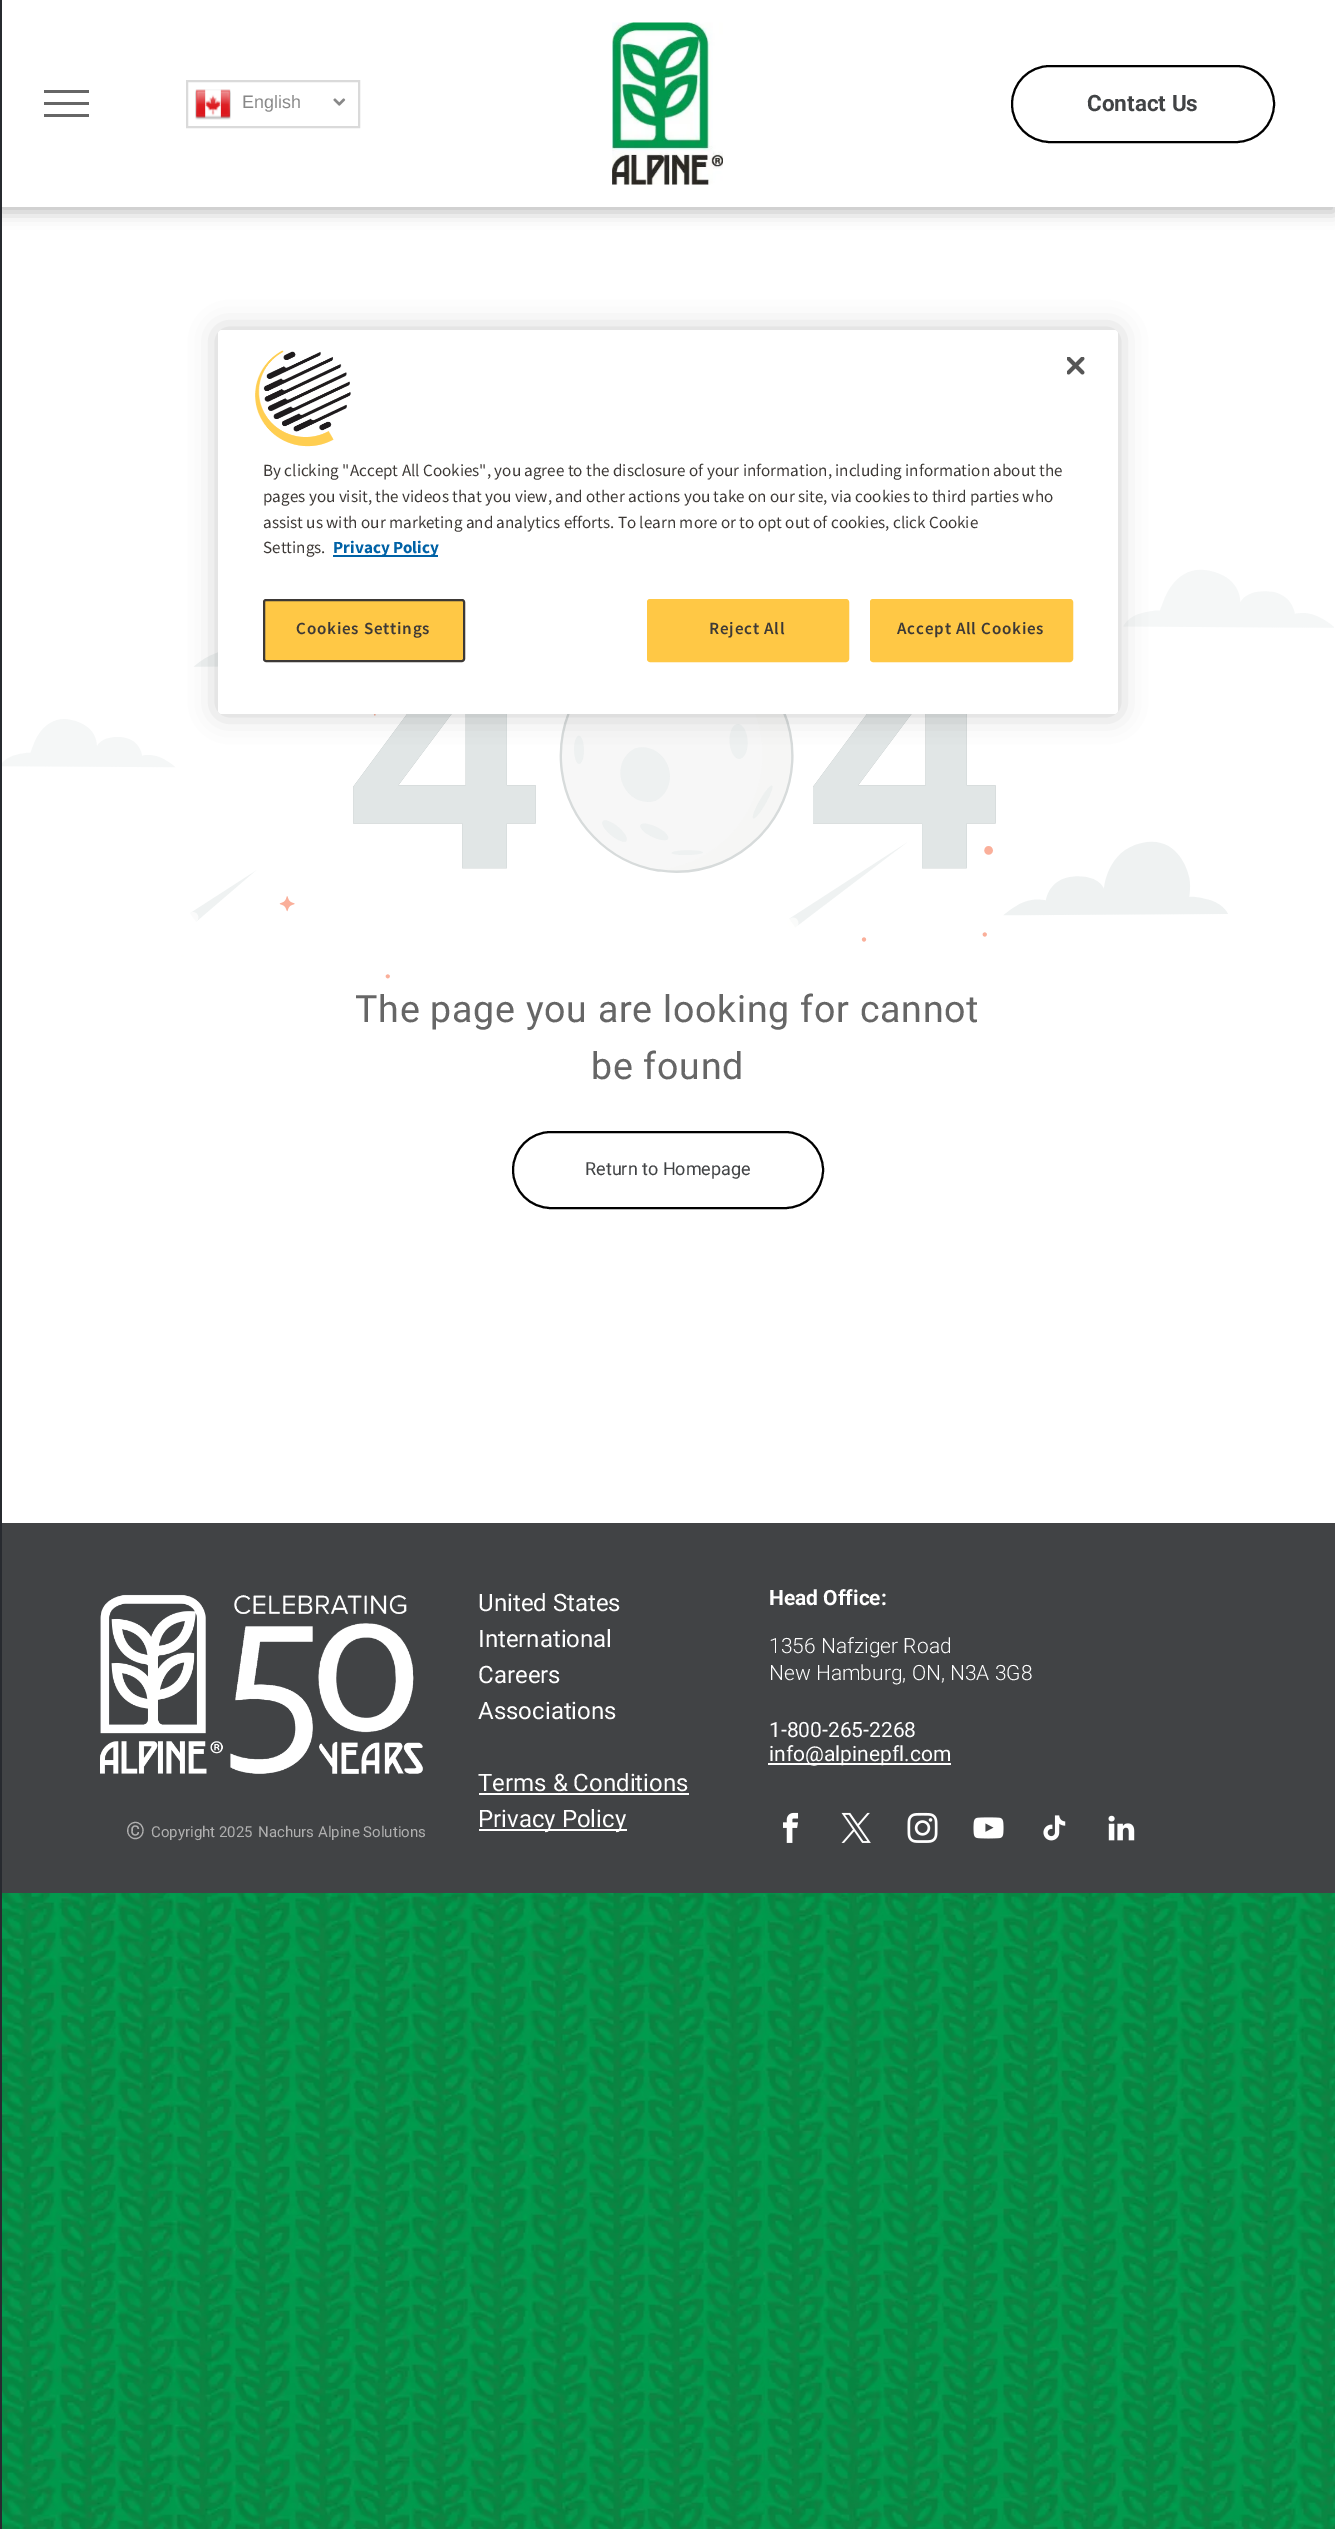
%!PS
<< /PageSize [1335 2529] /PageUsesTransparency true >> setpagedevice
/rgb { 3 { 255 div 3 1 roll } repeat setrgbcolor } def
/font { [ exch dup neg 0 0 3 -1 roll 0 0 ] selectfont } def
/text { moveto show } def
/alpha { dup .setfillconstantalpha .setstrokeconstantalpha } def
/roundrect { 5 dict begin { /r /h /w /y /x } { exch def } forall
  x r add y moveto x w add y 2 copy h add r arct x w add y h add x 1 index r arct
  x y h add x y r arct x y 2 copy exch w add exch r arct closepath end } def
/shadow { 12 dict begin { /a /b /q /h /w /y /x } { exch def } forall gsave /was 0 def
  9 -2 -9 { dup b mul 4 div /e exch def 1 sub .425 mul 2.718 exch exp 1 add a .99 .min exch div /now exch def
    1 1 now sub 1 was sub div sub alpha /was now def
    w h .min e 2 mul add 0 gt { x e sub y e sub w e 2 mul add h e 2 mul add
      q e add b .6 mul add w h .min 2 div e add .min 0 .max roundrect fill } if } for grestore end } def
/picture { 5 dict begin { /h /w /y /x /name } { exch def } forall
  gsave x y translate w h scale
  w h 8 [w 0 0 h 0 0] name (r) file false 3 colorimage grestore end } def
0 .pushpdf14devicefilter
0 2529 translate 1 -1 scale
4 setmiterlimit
255 255 255 rgb
0 0 1335 2529 rectfill
(img_01.rgb) 2 1893 1333 636 picture
0 0 0 rgb
0 5 1335 207 0 8 0.25 shadow
39 42 47 rgb
0 0 2 2529 rectfill
255 255 255 rgb
2 0 1333 207 rectfill
102 102 102 rgb
44 90 45 3 rectfill
44 102 45 3 rectfill
44 114 45 3 rectfill
218 218 218 rgb
2 setlinewidth
187 81 172 46 rectstroke
(img_02.rgb) 195 89 36 31 picture
(img_03.rgb) 333 98 13 8 picture
(img_04.rgb) 612 22 111 163 picture
0 0 0 rgb
1012 66 262 76 38 roundrect stroke
(img_05.rgb) 2 569 1332 410 picture
513 1132 310 76 38 roundrect stroke
65 67 69 rgb
2 1523 1333 370 rectfill
(img_06.rgb) 100 1594 323 180 picture
255 255 255 rgb
479 1793 210 2 rectfill
479 1829 148 2 rectfill
768 1763 183 2 rectfill
(img_07.rgb) 783 1812 16 31 picture
(img_08.rgb) 841 1812 30 31 picture
(img_09.rgb) 907 1812 31 31 picture
(img_10.rgb) 973 1817 31 22 picture
(img_11.rgb) 1043 1815 23 26 picture
(img_12.rgb) 1108 1815 27 26 picture
0 0 0 rgb
218 330 900 384 4 13.5 0.2 shadow
255 255 255 rgb
218 330 900 384 4 roundrect fill
(img_13.rgb) 1067 357 18 18 picture
(img_14.rgb) 255 350 96 97 picture
0 98 166 rgb
333 555 105 2 rectfill
255 200 69 rgb
264 600 200 61 2 roundrect gsave fill grestore
61 57 54 rgb
stroke
255 200 69 rgb
648 600 200 61 2 roundrect gsave fill grestore
stroke
871 600 201 61 2 roundrect gsave fill grestore
stroke
/LiberationSans-Regular 18 font
136 136 136 rgb
(English) 242 108 text
/Roboto-Bold 22.5 font
65 67 69 rgb
(Contact Us) 1087 111 text
/Roboto-Regular 37.5 font
102 102 102 rgb
355 1022 moveto 0.75 0 (The page you are looking for cannot) ashow
591 1079 moveto 0.75 0 (be found) ashow
/Roboto-Regular 18 font
65 67 69 rgb
(Return to Homepage) 585 1175 text
/Roboto-Regular 24 font
176 176 176 rgb
(©) 126 1839 text
/Roboto-Regular 15 font
(Copyright 2025) 151 1837 text
(Nachurs Alpine Solutions) 258 1837 text
/Roboto-Regular 24 font
255 255 255 rgb
(United States) 478 1611 text
(International) 478 1647 text
(Careers) 478 1683 text
(Associations) 478 1719 text
(Terms & Conditions) 478 1791 text
(Privacy Policy) 478 1827 text
/Roboto-Bold 21 font
(Head Office:) 769 1605 text
/Roboto-Light 21 font
(1356 Nafziger Road) 769 1653 text
(New Hamburg, ON, N3A 3G8) 769 1680 text
/Roboto-Regular 21 font
(1-800-265-2268) 769 1737 text
(info@alpinepfl.com) 769 1761 text
/SourceSansPro-Regular 17.05 font
61 57 54 rgb
(By clicking "Accept All Cookies", you agree to the disclosure of your information, including information about the) 263 476 text
(pages you visit, the videos that you view, and other actions you take on our site, via cookies to third parties who) 263 502 text
(assist us with our marketing and analytics efforts. To learn more or to opt out of cookies, click Cookie) 263 528 text
(Settings.) 263 553 text
/SourceSansPro-Bold 17.05 font
0 98 166 rgb
(Privacy Policy) 333 553 text
/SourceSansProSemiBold-SemiBold 17.05 font
61 57 54 rgb
296 634 moveto 0.8 0 (Cookies Settings) ashow
709 634 moveto 0.8 0 (Reject All) ashow
897 634 moveto 0.8 0 (Accept All Cookies) ashow
.poppdf14devicefilter showpage
